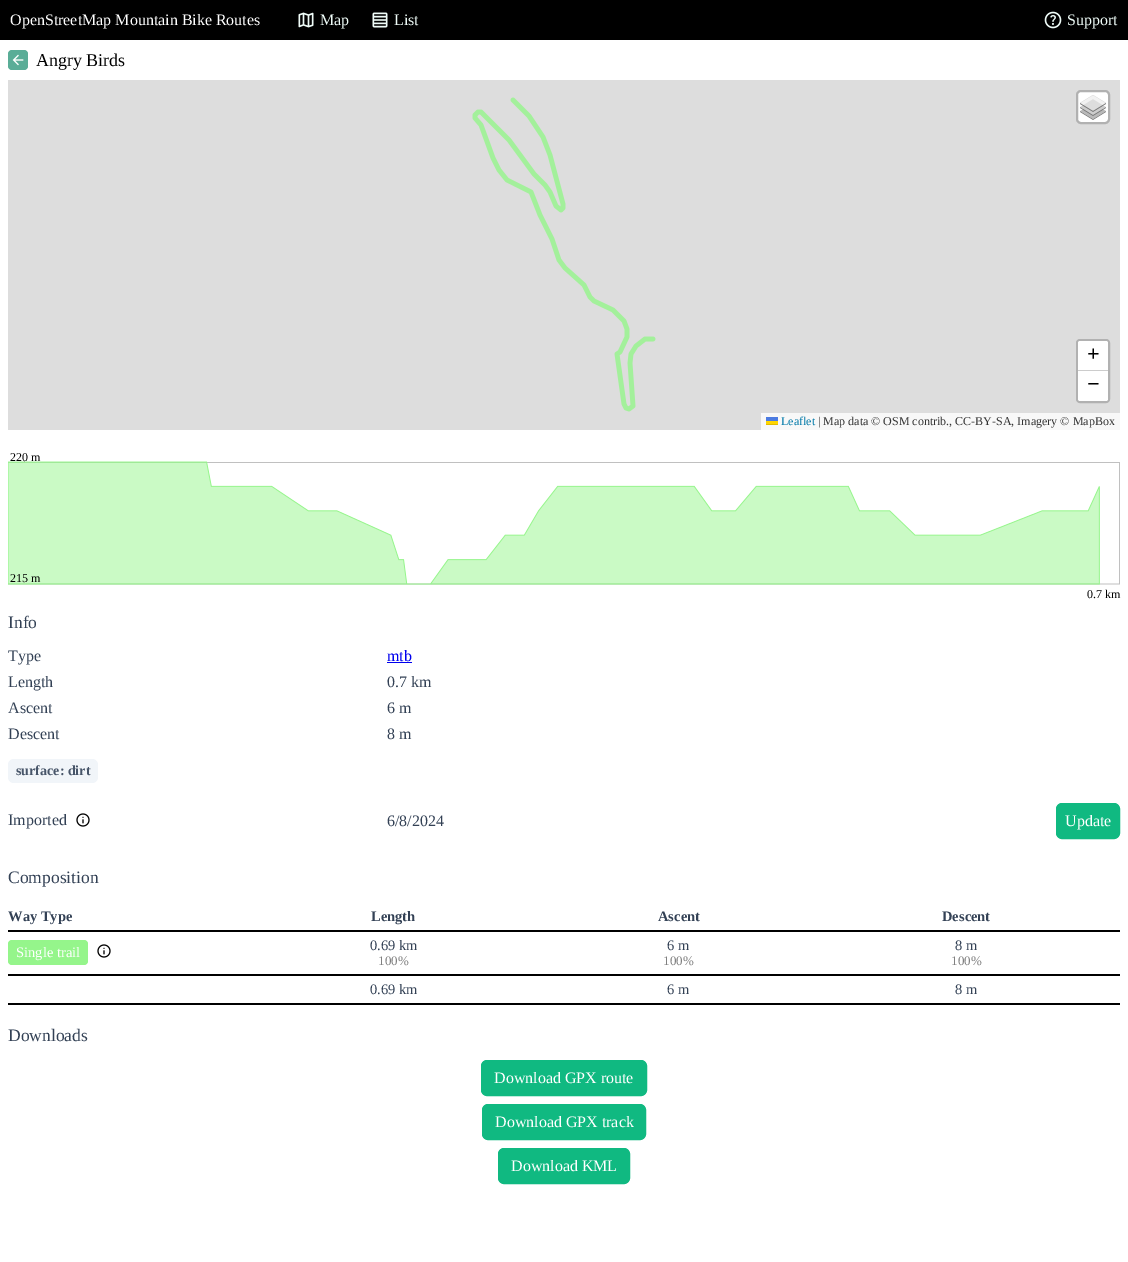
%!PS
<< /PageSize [1128 1262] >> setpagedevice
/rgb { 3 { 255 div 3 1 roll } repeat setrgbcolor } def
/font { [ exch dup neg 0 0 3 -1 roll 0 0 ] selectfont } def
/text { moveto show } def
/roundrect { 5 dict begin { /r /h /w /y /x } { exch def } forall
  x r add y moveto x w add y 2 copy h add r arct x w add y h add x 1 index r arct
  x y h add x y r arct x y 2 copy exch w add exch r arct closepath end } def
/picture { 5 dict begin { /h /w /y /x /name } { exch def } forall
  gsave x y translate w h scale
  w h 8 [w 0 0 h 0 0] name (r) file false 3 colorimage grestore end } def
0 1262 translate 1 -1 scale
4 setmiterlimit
255 255 255 rgb
0 0 1128 1262 rectfill
0 0 0 rgb
0 0 1128 40 rectfill
(img_01.rgb) 298 12 16 16 picture
(img_02.rgb) 372 12 16 16 picture
(img_03.rgb) 1044 11 18 18 picture
90 173 151 rgb
8 50 20 20 4 roundrect fill
(img_04.rgb) 12 54 12 12 picture
221 221 221 rgb
8 80 1112 350 rectfill
(img_05.rgb) 472 97 184 315 picture
255 255 255 rgb
1077 91 32 32 4 roundrect gsave fill grestore
177 177 177 rgb
2 setlinewidth
stroke
(img_06.rgb) 1080 95 26 25 picture
1077 340 32 62 3 roundrect stroke
255 255 255 rgb
1080 341 moveto 26 0 rlineto 1 0 2 1 2 2 rcurveto 0 28 rlineto -30 0 rlineto 0 -28 rlineto 0 -1 1 -2 2 -2 rcurveto closepath fill
204 204 204 rgb
1078 370 30 1 rectfill
255 255 255 rgb
1078 371 moveto 30 0 rlineto 0 28 rlineto 0 1 -1 2 -2 2 rcurveto -26 0 rlineto -1 0 -2 -1 -2 -2 rcurveto closepath fill
248 248 248 rgb
761 413 359 17 rectfill
76 123 225 rgb
766 417 12 4 rectfill
255 213 0 rgb
766 421 12 3 rectfill
224 188 0 rgb
766 424 12 1 rectfill
(img_07.rgb) 8 461 1112 124 picture
0 0 238 rgb
387 662 25 1 rectfill
241 245 249 rgb
8 759 90 24 6 roundrect fill
(img_08.rgb) 76 813 14 14 picture
16 185 129 rgb
1056.5 803.5 63 35 5.5 roundrect gsave fill grestore
1 setlinewidth
stroke
0 0 0 rgb
8 930 1112 2 rectfill
149 245 139 rgb
8 940 80 25 4 roundrect fill
(img_08.rgb) 97 944 14 14 picture
0 0 0 rgb
8 974 1112 2 rectfill
8 1003 1112 2 rectfill
16 185 129 rgb
481.5 1060.5 165 35 5.5 roundrect gsave fill grestore
stroke
482.5 1104.5 163 35 5.5 roundrect gsave fill grestore
stroke
498.5 1148.5 131 35 5.5 roundrect gsave fill grestore
stroke
/LiberationSerif-Regular 16 font
255 255 255 rgb
(OpenStreetMap Mountain Bike Routes) 10 25 text
239 252 248 rgb
(Map) 320 25 text
(List) 394 25 text
(Support) 1067 25 text
/LiberationSerif-Regular 18 font
0 0 0 rgb
(Angry Birds) 36 66 text
/LiberationSerif-Bold 22 font
(+) 1087 361 text
(−) 1087 391 text
/LiberationSerif-Regular 12 font
0 120 168 rgb
(Leaflet) 781 425 text
51 51 51 rgb
(| Map data © OSM contrib., CC-BY-SA, Imagery © MapBox) 818 425 text
0 0 0 rgb
(220 m) 10 461 text
(215 m) 10 582 text
(0.7 km) 1087 598 text
/LiberationSerif-Regular 17.5 font
51 65 85 rgb
(Info) 8 628 text
/LiberationSerif-Regular 16 font
(Type) 8 661 text
0 0 238 rgb
(mtb) 387 661 text
51 65 85 rgb
(Length) 8 687 text
(0.7 km) 387 687 text
(Ascent) 8 713 text
(6 m) 387 713 text
(Descent) 8 739 text
(8 m) 387 739 text
/LiberationSerif-Bold 14 font
71 85 105 rgb
(surface: dirt) 16 775 text
/LiberationSerif-Regular 16 font
51 65 85 rgb
(Imported) 8 825 text
(6/8/2024) 387 826 text
255 255 255 rgb
(Update) 1065 826 text
/LiberationSerif-Regular 17.5 font
51 65 85 rgb
(Composition) 8 883 text
/LiberationSerif-Bold 14.5 font
(Way Type) 8 921 text
(Length) 371 921 text
(Ascent) 658 921 text
(Descent) 942 921 text
/LiberationSerif-Regular 14.5 font
255 255 255 rgb
(Single trail) 16 957 text
51 65 85 rgb
(0.69 km) 370 950 text
/LiberationSerif-Regular 13 font
128 128 128 rgb
(100%) 378 965 text
/LiberationSerif-Regular 14.5 font
51 65 85 rgb
(6 m) 667 950 text
/LiberationSerif-Regular 13 font
128 128 128 rgb
(100%) 663 965 text
/LiberationSerif-Regular 14.5 font
51 65 85 rgb
(8 m) 955 950 text
/LiberationSerif-Regular 13 font
128 128 128 rgb
(100%) 951 965 text
/LiberationSerif-Regular 14.5 font
51 65 85 rgb
(0.69 km) 370 994 text
(6 m) 667 994 text
(8 m) 955 994 text
/LiberationSerif-Regular 17.5 font
(Downloads) 8 1041 text
/LiberationSerif-Regular 16 font
255 255 255 rgb
(Download GPX route) 494 1083 text
(Download GPX track) 495 1127 text
(Download KML) 511 1171 text
showpage
